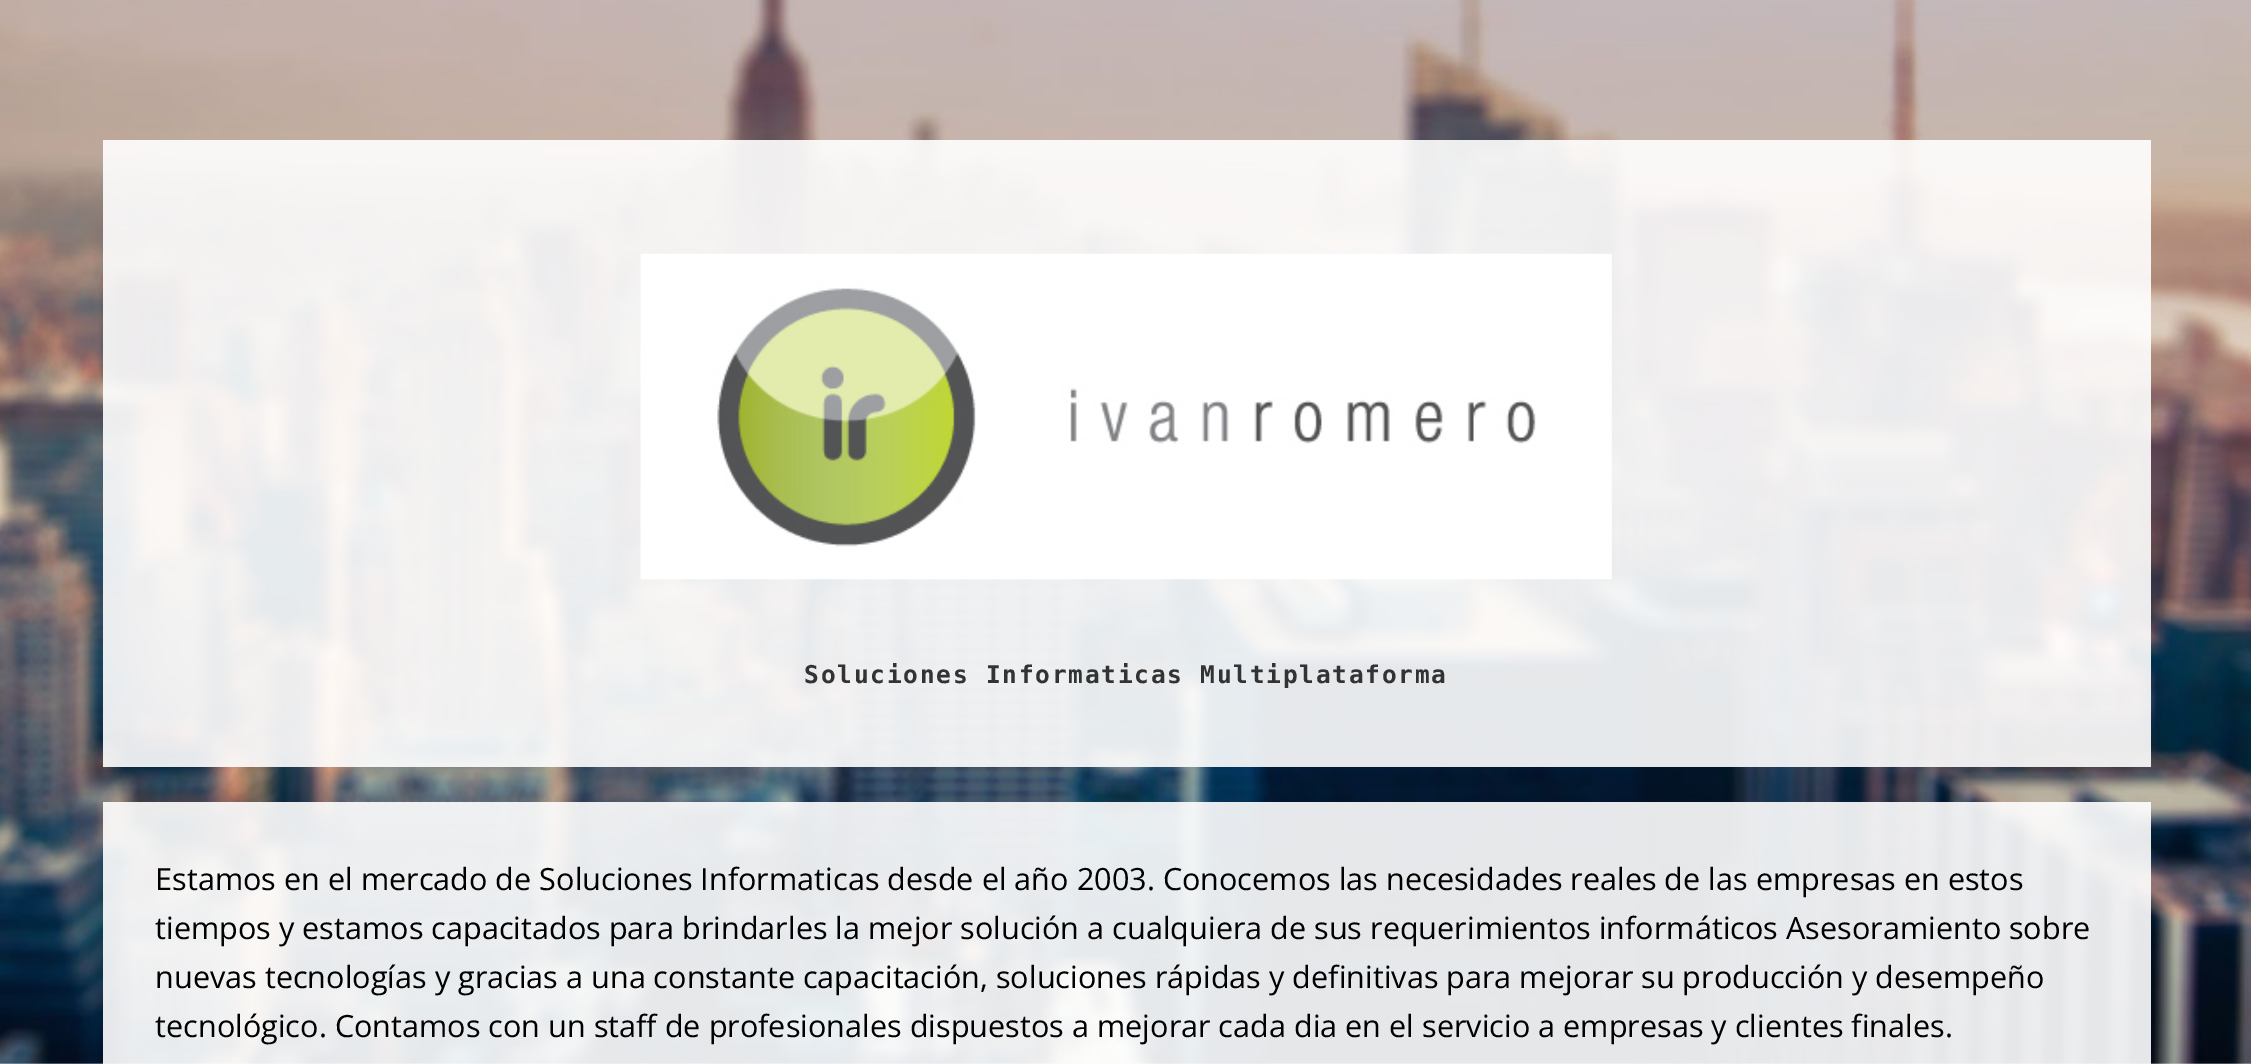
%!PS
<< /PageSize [2251 1064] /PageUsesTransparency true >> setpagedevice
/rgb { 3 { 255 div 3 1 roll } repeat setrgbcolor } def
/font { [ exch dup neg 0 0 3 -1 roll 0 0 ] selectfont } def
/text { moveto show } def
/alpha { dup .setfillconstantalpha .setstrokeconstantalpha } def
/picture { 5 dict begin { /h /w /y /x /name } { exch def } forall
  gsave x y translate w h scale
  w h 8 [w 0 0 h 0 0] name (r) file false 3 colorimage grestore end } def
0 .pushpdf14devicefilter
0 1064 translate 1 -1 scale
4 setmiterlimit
255 255 255 rgb
0 0 2251 1064 rectfill
(img_01.rgb) 0 0 2251 1064 picture
0.9 alpha
103 140 2048 627 rectfill
1 alpha
(img_02.rgb) 640 253 972 327 picture
0.9 alpha
103 802 2048 262 rectfill
/DejaVuSansMono-Bold 24.5 font
1 alpha
51 51 51 rgb
804 683 moveto 1.75 0 (Soluciones Informaticas Multiplataforma) ashow
/OpenSans-Regular 30.62 font
0 0 0 rgb
(Estamos en el mercado de Soluciones Informaticas desde el año 2003. Conocemos las necesidades reales de las empresas en estos) 155 890 text
(tiempos y estamos capacitados para brindarles la mejor solución a cualquiera de sus requerimientos informáticos Asesoramiento sobre) 155 939 text
(nuevas tecnologías y gracias a una constante capacitación, soluciones rápidas y definitivas para mejorar su producción y desempeño) 155 988 text
(tecnológico. Contamos con un staff de profesionales dispuestos a mejorar cada dia en el servicio a empresas y clientes finales.) 155 1037 text
.poppdf14devicefilter showpage
